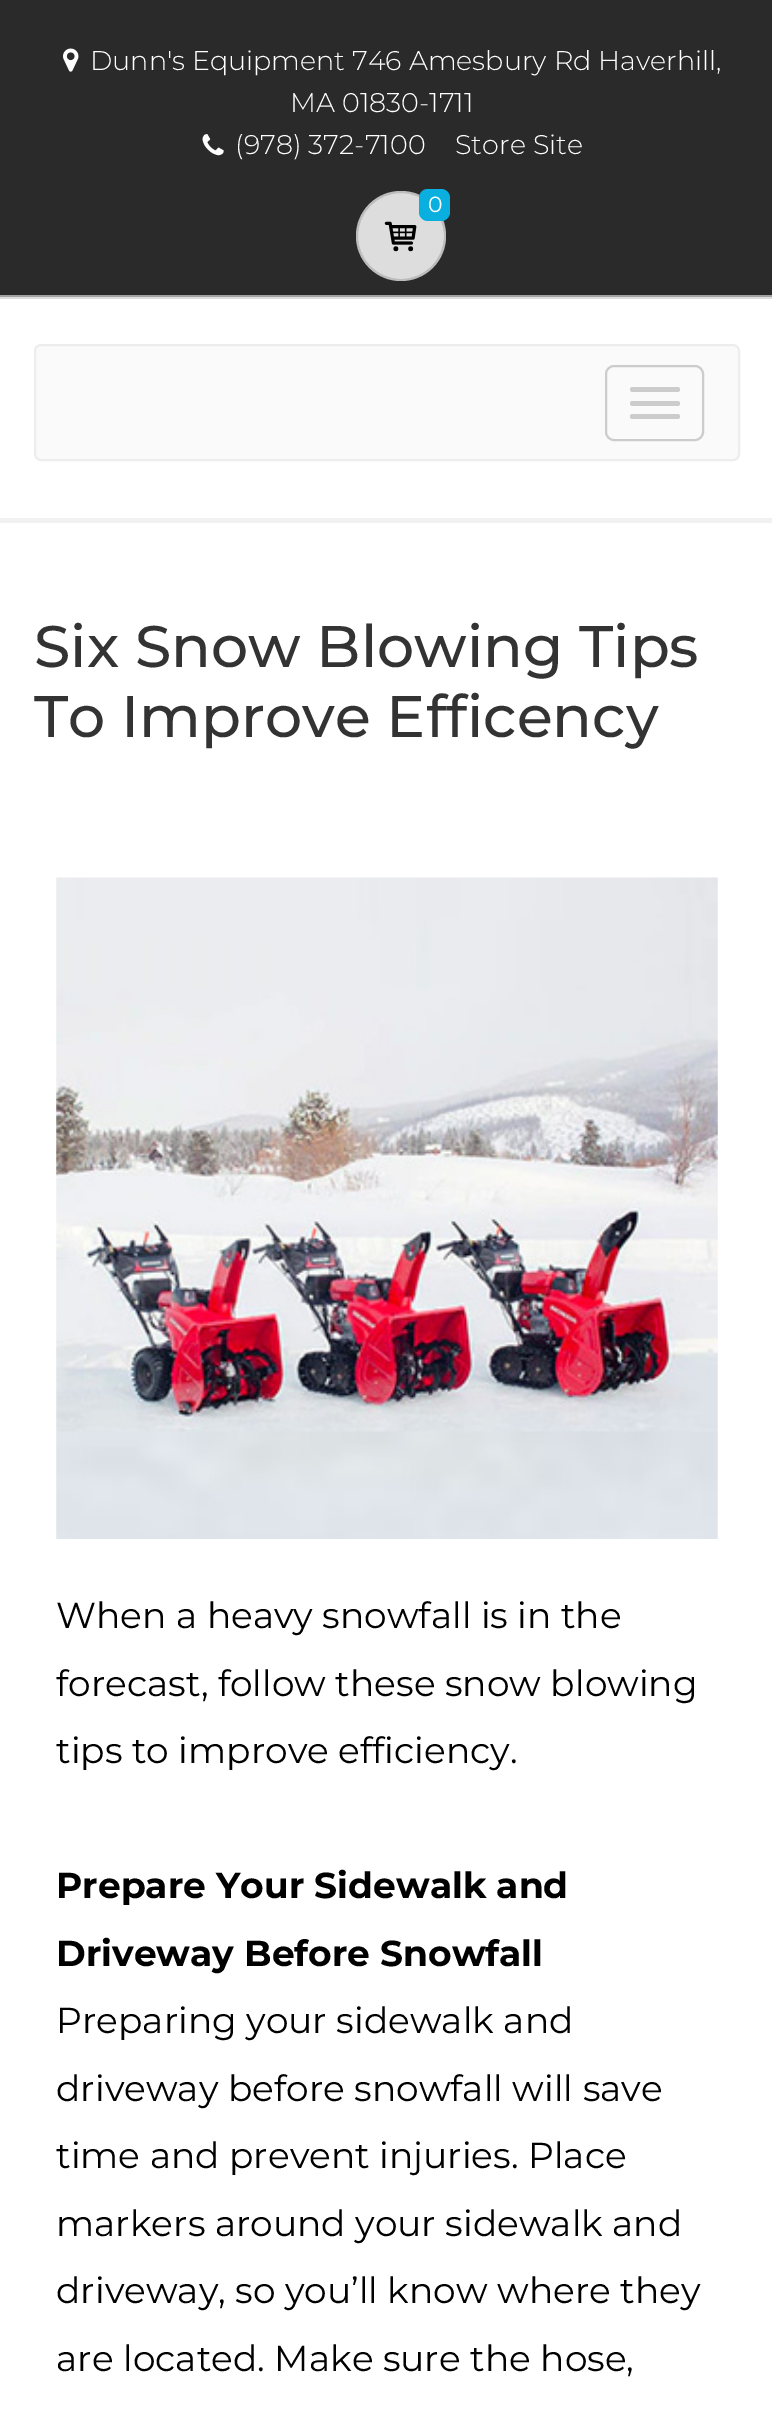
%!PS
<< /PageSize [772 2415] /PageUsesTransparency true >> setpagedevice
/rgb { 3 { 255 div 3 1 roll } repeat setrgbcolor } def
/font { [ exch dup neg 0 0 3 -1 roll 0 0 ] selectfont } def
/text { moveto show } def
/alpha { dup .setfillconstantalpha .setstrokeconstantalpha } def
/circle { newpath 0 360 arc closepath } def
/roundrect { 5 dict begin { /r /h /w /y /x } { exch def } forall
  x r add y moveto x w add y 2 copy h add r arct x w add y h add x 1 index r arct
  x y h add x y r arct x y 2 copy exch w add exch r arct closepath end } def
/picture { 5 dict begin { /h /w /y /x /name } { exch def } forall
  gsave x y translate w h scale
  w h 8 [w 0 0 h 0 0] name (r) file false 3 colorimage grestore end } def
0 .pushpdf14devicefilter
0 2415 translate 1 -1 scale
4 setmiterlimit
255 255 255 rgb
0 0 772 2415 rectfill
42 42 42 rgb
0 0 772 295 rectfill
161 161 161 rgb
0 295 772 2 rectfill
(img_01.rgb) 63 48 16 24 picture
(img_02.rgb) 202 134 22 22 picture
221 221 221 rgb
401 236 45 circle fill
0.15 alpha
0 0 0 rgb
2 setlinewidth
401 236 44 circle stroke
1 alpha
9 175 223 rgb
419 189 31 32 9 roundrect fill
(img_03.rgb) 384 221 33 31 picture
221 221 221 rgb
0 297 772 2 rectfill
241 241 241 rgb
0 518 772 5 rectfill
250 250 250 rgb
35 345 704 115 6 roundrect gsave fill grestore
237 237 237 rgb
stroke
204 204 204 rgb
606 366 97 74 8 roundrect stroke
630 387 50 5 2.5 roundrect fill
630 401 50 5 2.5 roundrect fill
630 414 50 5 2.5 roundrect fill
(img_04.rgb) 56 877 662 662 picture
/Montserrat-Light 27 font
255 255 255 rgb
(Dunn's Equipment 746 Amesbury Rd Haverhill,) 90 70 text
(MA 01830-1711) 290 112 text
(\(978\) 372-7100) 235 154 text
(Store Site) 455 154 text
/Montserrat-Regular 22 font
(0) 428 212 text
/Montserrat-Medium 58.5 font
51 51 51 rgb
(Six Snow Blowing Tips) 34 667 text
(To Improve Efficency) 34 737 text
/Montserrat-Regular 36 font
0 0 0 rgb
(When a heavy snowfall is in the) 56 1628 text
(forecast, follow these snow blowing) 56 1696 text
(tips to improve efficiency.) 56 1763 text
/Montserrat-Bold 36 font
(Prepare Your Sidewalk and) 56 1898 text
(Driveway Before Snowfall) 56 1966 text
/Montserrat-Regular 36 font
(Preparing your sidewalk and) 56 2033 text
(driveway before snowfall will save) 56 2101 text
(time and prevent injuries. Place) 56 2168 text
(markers around your sidewalk and) 56 2236 text
(driveway, so you’ll know where they) 56 2303 text
(are located. Make sure the hose,) 56 2371 text
.poppdf14devicefilter showpage
